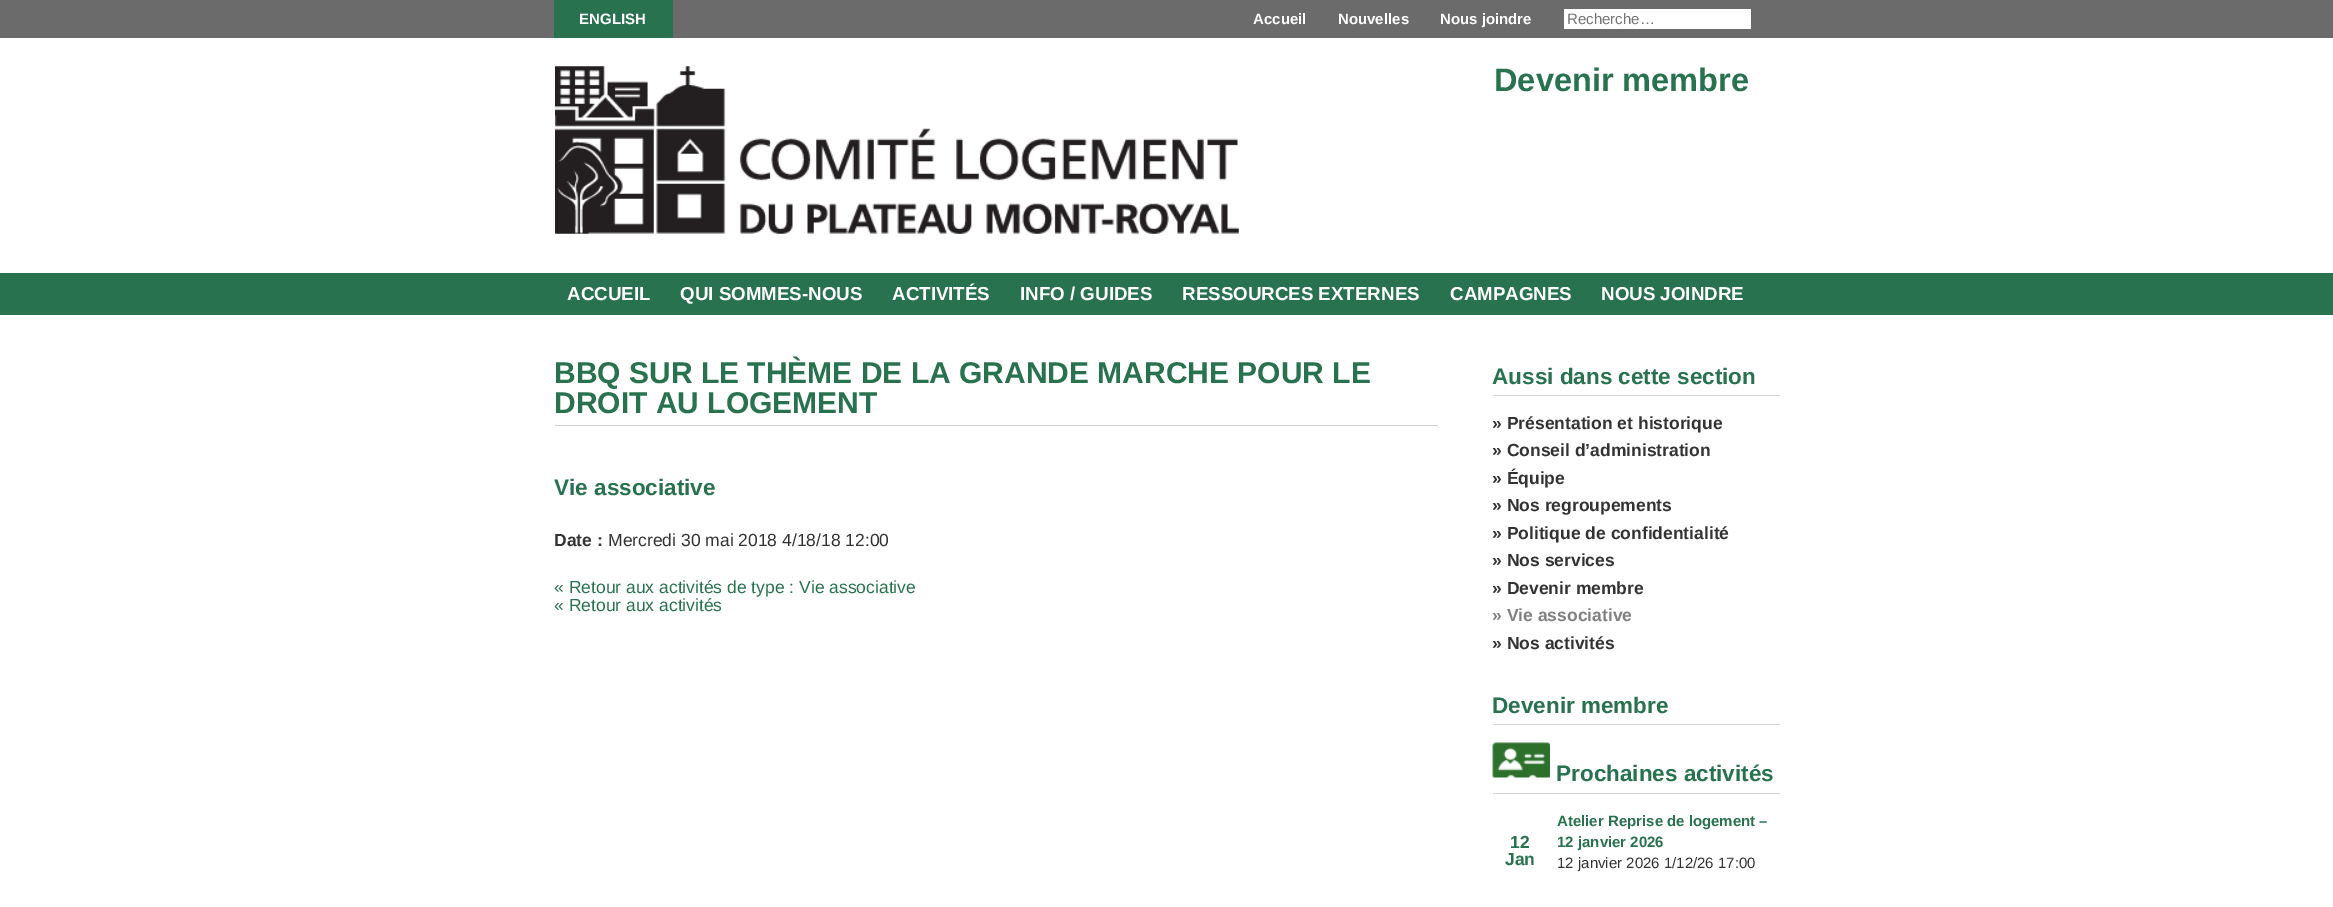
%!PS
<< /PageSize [2333 907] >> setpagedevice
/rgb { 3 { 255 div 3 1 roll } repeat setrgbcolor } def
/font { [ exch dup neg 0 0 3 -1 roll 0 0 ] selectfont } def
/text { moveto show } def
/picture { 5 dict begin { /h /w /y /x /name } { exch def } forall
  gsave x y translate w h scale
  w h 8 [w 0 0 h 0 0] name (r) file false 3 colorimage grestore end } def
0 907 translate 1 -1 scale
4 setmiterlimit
255 255 255 rgb
0 0 2333 907 rectfill
107 107 107 rgb
0 0 2333 38 rectfill
40 114 79 rgb
554 0 119 38 rectfill
255 255 255 rgb
1564 9 187 20 rectfill
(img_01.rgb) 555 66 684 168 picture
40 114 79 rgb
0 273 2333 42 rectfill
210 210 210 rgb
555 425 883 1 rectfill
1493 395 287 1 rectfill
1493 724 287 1 rectfill
(img_02.rgb) 1492 742 58 36 picture
1493 793 287 1 rectfill
/LiberationSans-Bold 15 font
255 255 255 rgb
(ENGLISH) 579 24 text
(Accueil) 1253 24 text
(Nouvelles) 1338 24 text
(Nous joindre) 1440 24 text
/LiberationSans-Regular 15 font
117 117 117 rgb
(Recherche…) 1567 24 text
/LiberationSans-Bold 32.5 font
40 114 79 rgb
(Devenir membre) 1494 91 text
/LiberationSans-Bold 18.75 font
255 255 255 rgb
(ACCUEIL) 567 300 text
(QUI SOMMES-NOUS) 680 300 text
(ACTIVITÉS) 892 300 text
(INFO / GUIDES) 1020 300 text
(RESSOURCES EXTERNES) 1182 300 text
(CAMPAGNES) 1450 300 text
(NOUS JOINDRE) 1601 300 text
/LiberationSans-Bold 30 font
40 114 79 rgb
(BBQ SUR LE THÈME DE LA GRANDE MARCHE POUR LE) 554 383 text
(DROIT AU LOGEMENT) 554 413 text
/LiberationSans-Bold 22.5 font
(Vie associative) 554 495 text
/LiberationSans-Bold 17.5 font
51 51 51 rgb
(Date :) 554 546 text
/LiberationSans-Regular 17.5 font
(Mercredi 30 mai 2018 4/18/18 12:00) 608 546 text
40 114 79 rgb
(« Retour aux activités de type : Vie associative) 554 593 text
(« Retour aux activités) 554 611 text
/LiberationSans-Bold 22.5 font
(Aussi dans cette section) 1492 384 text
/LiberationSans-Bold 17.5 font
51 51 51 rgb
(» Présentation et historique) 1492 429 text
(» Conseil d’administration) 1492 456 text
(» Équipe) 1492 484 text
(» Nos regroupements) 1492 511 text
(» Politique de confidentialité) 1492 539 text
(» Nos services) 1492 566 text
(» Devenir membre) 1492 594 text
128 128 128 rgb
(» Vie associative) 1492 621 text
51 51 51 rgb
(» Nos activités) 1492 649 text
/LiberationSans-Bold 22.5 font
40 114 79 rgb
(Devenir membre) 1492 713 text
(Prochaines activités) 1556 781 text
/LiberationSans-Bold 17.5 font
(12) 1510 848 text
(Jan) 1505 865 text
/LiberationSans-Bold 15 font
(Atelier Reprise de logement –) 1557 826 text
(12 janvier 2026) 1557 847 text
/LiberationSans-Regular 15 font
51 51 51 rgb
(12 janvier 2026 1/12/26 17:00) 1557 868 text
showpage
